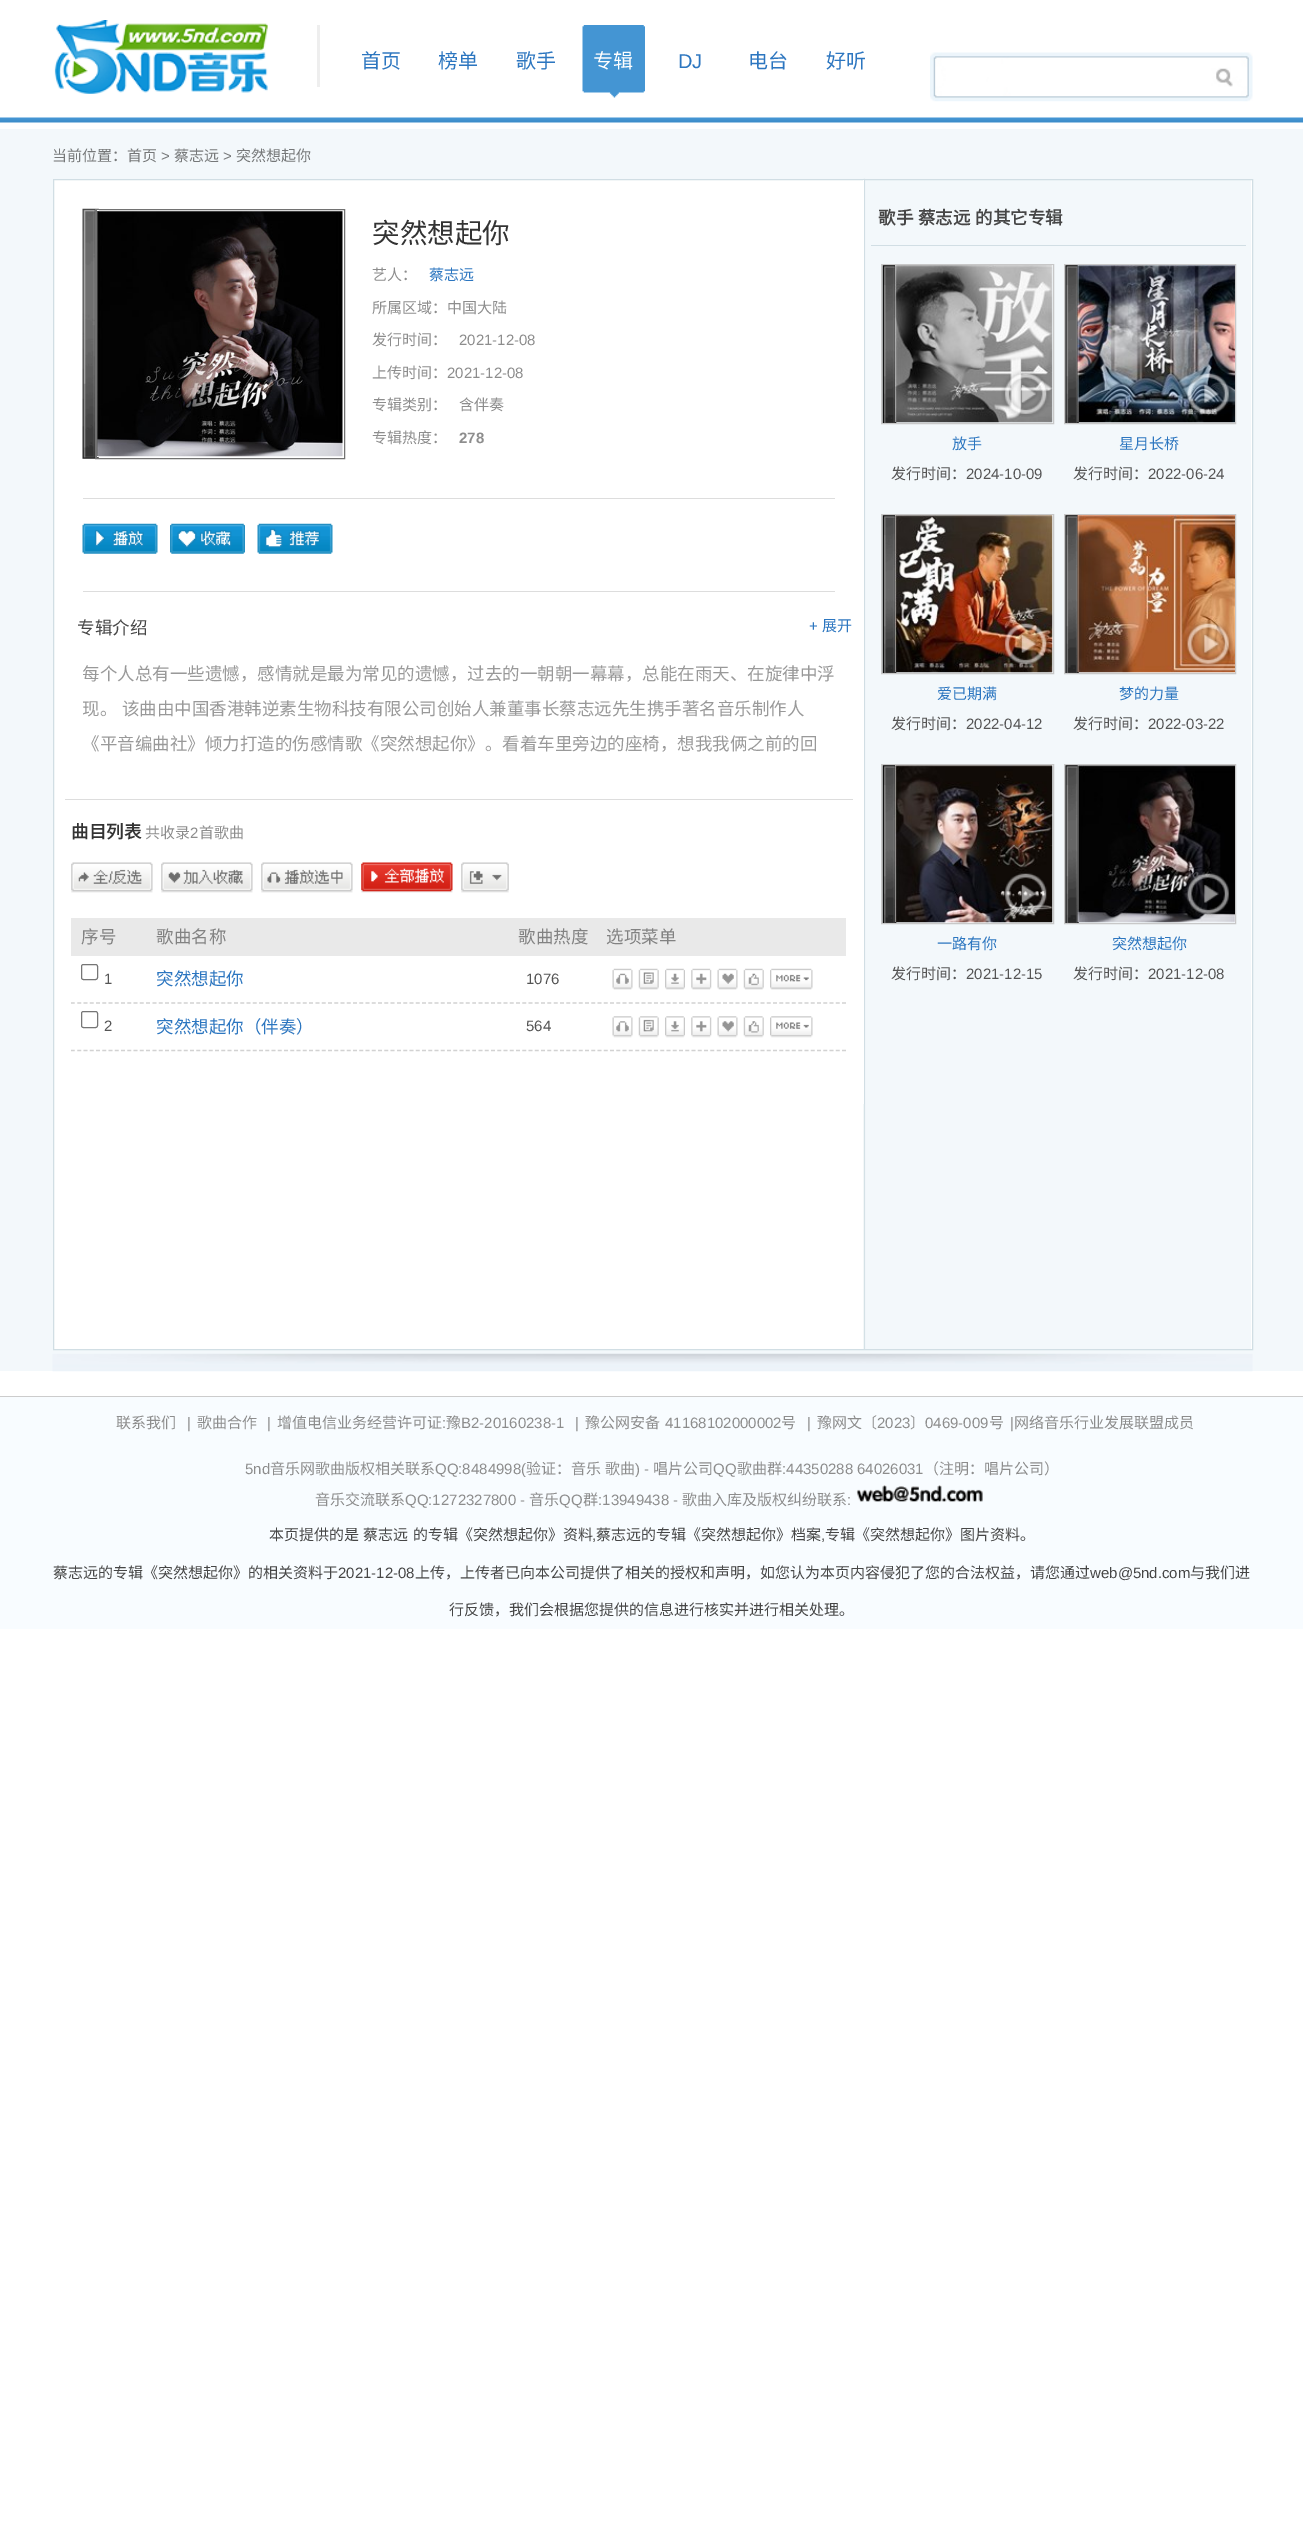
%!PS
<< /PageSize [1303 2536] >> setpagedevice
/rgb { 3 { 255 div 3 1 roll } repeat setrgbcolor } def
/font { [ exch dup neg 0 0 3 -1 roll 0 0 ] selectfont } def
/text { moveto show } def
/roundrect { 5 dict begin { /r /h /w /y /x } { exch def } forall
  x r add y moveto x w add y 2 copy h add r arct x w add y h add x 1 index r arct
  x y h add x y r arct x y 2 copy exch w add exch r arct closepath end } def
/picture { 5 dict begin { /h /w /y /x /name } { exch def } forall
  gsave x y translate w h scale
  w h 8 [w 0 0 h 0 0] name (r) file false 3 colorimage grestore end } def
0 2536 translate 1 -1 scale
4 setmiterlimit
255 255 255 rgb
0 0 1303 2536 rectfill
(img_01.rgb) 0 117 1303 6 picture
(img_02.rgb) 54 20 214 74 picture
238 238 238 rgb
317 25 3 62 rectfill
(img_03.rgb) 582 25 63 73 picture
(img_04.rgb) 930 52 323 50 picture
243 248 251 rgb
0 129 1303 1242 rectfill
(img_05.rgb) 52 1353 1201 19 picture
255 255 255 rgb
54 180 1198 1169 rectfill
(img_06.rgb) 863 178 388 1171 picture
209 222 228 rgb
53.5 179.5 1199 1170 rectstroke
255 255 255 rgb
863 180 1 924 rectfill
209 222 228 rgb
864 180 1 924 rectfill
(img_07.rgb) 82 208 17 251 picture
114 114 114 rgb
95.5 209.5 249 249 rectstroke
255 255 255 rgb
96 210 3 1 rectfill
96 456 3 1 rectfill
114 114 114 rgb
96 210 1 248 rectfill
(img_08.rgb) 97 211 246 246 picture
221 221 221 rgb
83 498 752 1 rectfill
(img_09.rgb) 82 523 76 31 picture
(img_10.rgb) 170 523 75 31 picture
(img_11.rgb) 257 523 76 31 picture
83 591 752 1 rectfill
65 799 788 1 rectfill
(img_12.rgb) 71 862 82 31 picture
(img_13.rgb) 161 862 92 31 picture
(img_14.rgb) 261 862 92 31 picture
(img_15.rgb) 361 862 92 31 picture
(img_16.rgb) 461 862 48 31 picture
233 233 233 rgb
71 918 775 38 rectfill
210 210 210 rgb
1.2 setlinewidth
[3.75 2.52] 0 setdash
71 1003 moveto 775 0 rlineto stroke
118 118 118 rgb
1 setlinewidth
[] 0 setdash
81.5 964.5 16 15 2 roundrect stroke
(img_17.rgb) 612 968 21 22 picture
(img_18.rgb) 638 968 21 22 picture
(img_19.rgb) 665 968 20 22 picture
(img_20.rgb) 691 968 21 22 picture
(img_21.rgb) 717 968 21 22 picture
(img_22.rgb) 743 968 21 22 picture
(img_23.rgb) 770 968 43 22 picture
210 210 210 rgb
1.2 setlinewidth
[3.75 2.52] 0 setdash
71 1050.5 moveto 775 0 rlineto stroke
118 118 118 rgb
1 setlinewidth
[] 0 setdash
81.5 1011.5 16 16 2 roundrect stroke
(img_24.rgb) 612 1016 21 22 picture
(img_25.rgb) 638 1016 21 22 picture
(img_26.rgb) 665 1016 20 22 picture
(img_27.rgb) 691 1016 21 22 picture
(img_28.rgb) 717 1016 21 22 picture
(img_29.rgb) 743 1016 21 22 picture
(img_30.rgb) 770 1016 43 22 picture
209 222 228 rgb
871 245 375 1 rectfill
(img_31.rgb) 882 265 15 158 picture
200 200 200 rgb
881.5 264.5 172 159 rectstroke
(img_32.rgb) 895 265 158 158 picture
(img_33.rgb) 1001 370 49 47 picture
(img_34.rgb) 1065 265 14 158 picture
1064.5 264.5 171 159 rectstroke
(img_35.rgb) 1077 265 158 158 picture
(img_36.rgb) 1184 370 48 45 picture
(img_31.rgb) 882 515 15 158 picture
881.5 514.5 172 159 rectstroke
(img_37.rgb) 895 515 158 158 picture
(img_38.rgb) 1001 622 49 45 picture
(img_34.rgb) 1065 515 14 158 picture
1064.5 514.5 171 159 rectstroke
(img_39.rgb) 1077 515 158 158 picture
(img_40.rgb) 1184 620 49 48 picture
(img_31.rgb) 882 765 15 158 picture
881.5 764.5 172 159 rectstroke
(img_41.rgb) 895 765 158 158 picture
(img_42.rgb) 1001 873 46 43 picture
(img_34.rgb) 1065 765 14 158 picture
1064.5 764.5 171 159 rectstroke
(img_43.rgb) 1077 765 158 158 picture
(img_44.rgb) 1185 872 44 46 picture
248 252 255 rgb
0 1397 1303 232 rectfill
204 204 204 rgb
0 1396 1303 1 rectfill
(img_45.rgb) 856 1485 127 17 picture
/NotoSansCJKSC-Regular 20 font
44 118 192 rgb
(首页) 361 68 text
(榜单) 438 68 text
(歌手) 516 68 text
255 255 255 rgb
(专辑) 593 68 text
/LiberationSans-Regular 20 font
44 118 192 rgb
(DJ) 678 68 text
/NotoSansCJKSC-Regular 20 font
(电台) 748 68 text
(好听) 826 68 text
/NotoSansCJKSC-Regular 15 font
118 120 121 rgb
(当前位置：首页) 52 161 text
/LiberationSans-Regular 15 font
(>) 161 161 text
/NotoSansCJKSC-Regular 15 font
(蔡志远) 174 161 text
/LiberationSans-Regular 15 font
(>) 223 161 text
/NotoSansCJKSC-Regular 15 font
(突然想起你) 236 161 text
/NotoSansCJKSC-Regular 27.5 font
51 51 51 rgb
(突然想起你) 372 243 text
/NotoSansCJKSC-Regular 15 font
141 141 141 rgb
(艺人：) 372 280 text
44 118 192 rgb
(蔡志远) 429 280 text
141 141 141 rgb
(所属区域：中国大陆) 372 313 text
(发行时间：) 372 345 text
/LiberationSans-Regular 15 font
(2021-12-08) 459 345 text
/NotoSansCJKSC-Regular 15 font
(上传时间：) 372 378 text
/LiberationSans-Regular 15 font
(2021-12-08) 447 378 text
/NotoSansCJKSC-Regular 15 font
(专辑类别：) 372 410 text
(含伴奏) 459 410 text
(专辑热度：) 372 443 text
/LiberationSans-Bold 15 font
(278) 459 443 text
/NotoSansCJKSC-Regular 17.5 font
70 70 70 rgb
(专辑介绍) 77 634 text
/LiberationSans-Regular 15 font
44 118 192 rgb
(+) 809 631 text
/NotoSansCJKSC-Regular 15 font
(展开) 822 631 text
gsave
83 656 752 113 rectclip
/NotoSansCJKSC-Regular 17.5 font
153 153 153 rgb
(每个人总有一些遗憾，感情就是最为常见的遗憾，过去的一朝朝一幕幕，总能在雨天、在旋律中浮) 82 680 text
82 715 moveto 1 0 32 (现。 该曲由中国香港韩逆素生物科技有限公司创始人兼董事长蔡志远先生携手著名音乐制作人) widthshow
grestore
/NotoSansCJKSC-Regular 17.5 font
153 153 153 rgb
(《平音编曲社》倾力打造的伤感情歌《突然想起你》。看着车里旁边的座椅，想我我俩之前的回) 82 750 text
/NotoSansCJKSC-Bold 17.5 font
51 51 51 rgb
(曲目列表) 71 838 text
/NotoSansCJKSC-Regular 15 font
141 141 141 rgb
(共收录) 145 838 text
/LiberationSans-Regular 15 font
(2) 190 838 text
/NotoSansCJKSC-Regular 15 font
(首歌曲) 199 838 text
/NotoSansCJKSC-Regular 17.5 font
130 130 130 rgb
(序号) 81 943 text
(歌曲名称) 156 943 text
(歌曲热度) 518 943 text
(选项菜单) 606 943 text
/LiberationSans-Regular 15 font
85 85 85 rgb
(1) 104 984 text
/NotoSansCJKSC-Regular 17.5 font
44 118 192 rgb
(突然想起你) 156 985 text
/LiberationSans-Regular 15 font
85 85 85 rgb
(1076) 526 984 text
(2) 104 1031 text
/NotoSansCJKSC-Regular 17.5 font
44 118 192 rgb
(突然想起你（伴奏）) 156 1033 text
/LiberationSans-Regular 15 font
85 85 85 rgb
(564) 526 1031 text
/NotoSansCJKSC-Bold 17.5 font
70 70 70 rgb
878 224 moveto 1 0 32 (歌手 蔡志远 的其它专辑) widthshow
/NotoSansCJKSC-Regular 15 font
44 118 192 rgb
(放手) 952 449 text
85 85 85 rgb
(发行时间：) 891 479 text
/LiberationSans-Regular 15 font
(2024-10-09) 966 479 text
/NotoSansCJKSC-Regular 15 font
44 118 192 rgb
(星月长桥) 1119 449 text
85 85 85 rgb
(发行时间：) 1073 479 text
/LiberationSans-Regular 15 font
(2022-06-24) 1148 479 text
/NotoSansCJKSC-Regular 15 font
44 118 192 rgb
(爱已期满) 937 699 text
85 85 85 rgb
(发行时间：) 891 729 text
/LiberationSans-Regular 15 font
(2022-04-12) 966 729 text
/NotoSansCJKSC-Regular 15 font
44 118 192 rgb
(梦的力量) 1119 699 text
85 85 85 rgb
(发行时间：) 1073 729 text
/LiberationSans-Regular 15 font
(2022-03-22) 1148 729 text
/NotoSansCJKSC-Regular 15 font
44 118 192 rgb
(一路有你) 937 949 text
85 85 85 rgb
(发行时间：) 891 979 text
/LiberationSans-Regular 15 font
(2021-12-15) 966 979 text
/NotoSansCJKSC-Regular 15 font
44 118 192 rgb
(突然想起你) 1112 949 text
85 85 85 rgb
(发行时间：) 1073 979 text
/LiberationSans-Regular 15 font
(2021-12-08) 1148 979 text
/NotoSansCJKSC-Regular 15 font
141 141 141 rgb
(联系我们) 116 1428 text
/LiberationSans-Regular 15 font
(|) 187 1428 text
/NotoSansCJKSC-Regular 15 font
(歌曲合作) 197 1428 text
/LiberationSans-Regular 15 font
(|) 267 1428 text
/NotoSansCJKSC-Regular 15 font
(增值电信业务经营许可证) 277 1428 text
/LiberationSans-Regular 15 font
(:) 442 1428 text
/NotoSansCJKSC-Regular 15 font
(豫) 446 1428 text
/LiberationSans-Regular 15 font
(B2-20160238-1) 461 1428 text
(|) 575 1428 text
/NotoSansCJKSC-Regular 15 font
(豫公网安备) 585 1428 text
/LiberationSans-Regular 15 font
(41168102000002) 665 1428 text
/NotoSansCJKSC-Regular 15 font
(号) 781 1428 text
/LiberationSans-Regular 15 font
(|) 807 1428 text
/NotoSansCJKSC-Regular 15 font
(豫网文〔) 817 1428 text
/LiberationSans-Regular 15 font
(2023) 877 1428 text
/NotoSansCJKSC-Regular 15 font
(〕) 910 1428 text
/LiberationSans-Regular 15 font
(0469-009) 925 1428 text
/NotoSansCJKSC-Regular 15 font
(号) 989 1428 text
/LiberationSans-Regular 15 font
(|) 1010 1428 text
/NotoSansCJKSC-Regular 15 font
(网络音乐行业发展联盟成员) 1014 1428 text
/LiberationSans-Regular 15 font
(5nd) 245 1474 text
/NotoSansCJKSC-Regular 15 font
(音乐网歌曲版权相关联系) 270 1474 text
/LiberationSans-Regular 15 font
(QQ:8484998\() 435 1474 text
/NotoSansCJKSC-Regular 15 font
(验证：音乐) 526 1474 text
(歌曲) 605 1474 text
/LiberationSans-Regular 15 font
(\) -) 635 1474 text
/NotoSansCJKSC-Regular 15 font
(唱片公司) 653 1474 text
/LiberationSans-Regular 15 font
(QQ) 713 1474 text
/NotoSansCJKSC-Regular 15 font
(歌曲群) 737 1474 text
/LiberationSans-Regular 15 font
(:44350288 64026031) 782 1474 text
/NotoSansCJKSC-Regular 15 font
(（注明：唱片公司）) 924 1474 text
(音乐交流联系) 315 1505 text
/LiberationSans-Regular 15 font
(QQ:1272327800 -) 405 1505 text
/NotoSansCJKSC-Regular 15 font
(音乐) 529 1505 text
/LiberationSans-Regular 15 font
(QQ) 559 1505 text
/NotoSansCJKSC-Regular 15 font
(群) 583 1505 text
/LiberationSans-Regular 15 font
(:13949438 -) 598 1505 text
/NotoSansCJKSC-Regular 15 font
(歌曲入库及版权纠纷联系) 682 1505 text
/LiberationSans-Regular 15 font
(:) 847 1505 text
/NotoSansCJKSC-Regular 15 font
70 70 70 rgb
269 1540 moveto 1 0 32 (本页提供的是 蔡志远 的专辑《突然想起你》资料) widthshow
/LiberationSans-Regular 15 font
(,) 592 1540 text
/NotoSansCJKSC-Regular 15 font
(蔡志远的专辑《突然想起你》档案) 596 1540 text
/LiberationSans-Regular 15 font
(,) 821 1540 text
/NotoSansCJKSC-Regular 15 font
(专辑《突然想起你》图片资料。) 825 1540 text
(蔡志远的专辑《突然想起你》的相关资料于) 53 1578 text
/LiberationSans-Regular 15 font
(2021-12-08) 338 1578 text
/NotoSansCJKSC-Regular 15 font
(上传，上传者已向本公司提供了相关的授权和声明，如您认为本页内容侵犯了您的合法权益，请您通过) 415 1578 text
/LiberationSans-Regular 15 font
(web@5nd.com) 1090 1578 text
/NotoSansCJKSC-Regular 15 font
(与我们进) 1190 1578 text
(行反馈，我们会根据您提供的信息进行核实并进行相关处理。) 449 1615 text
showpage
